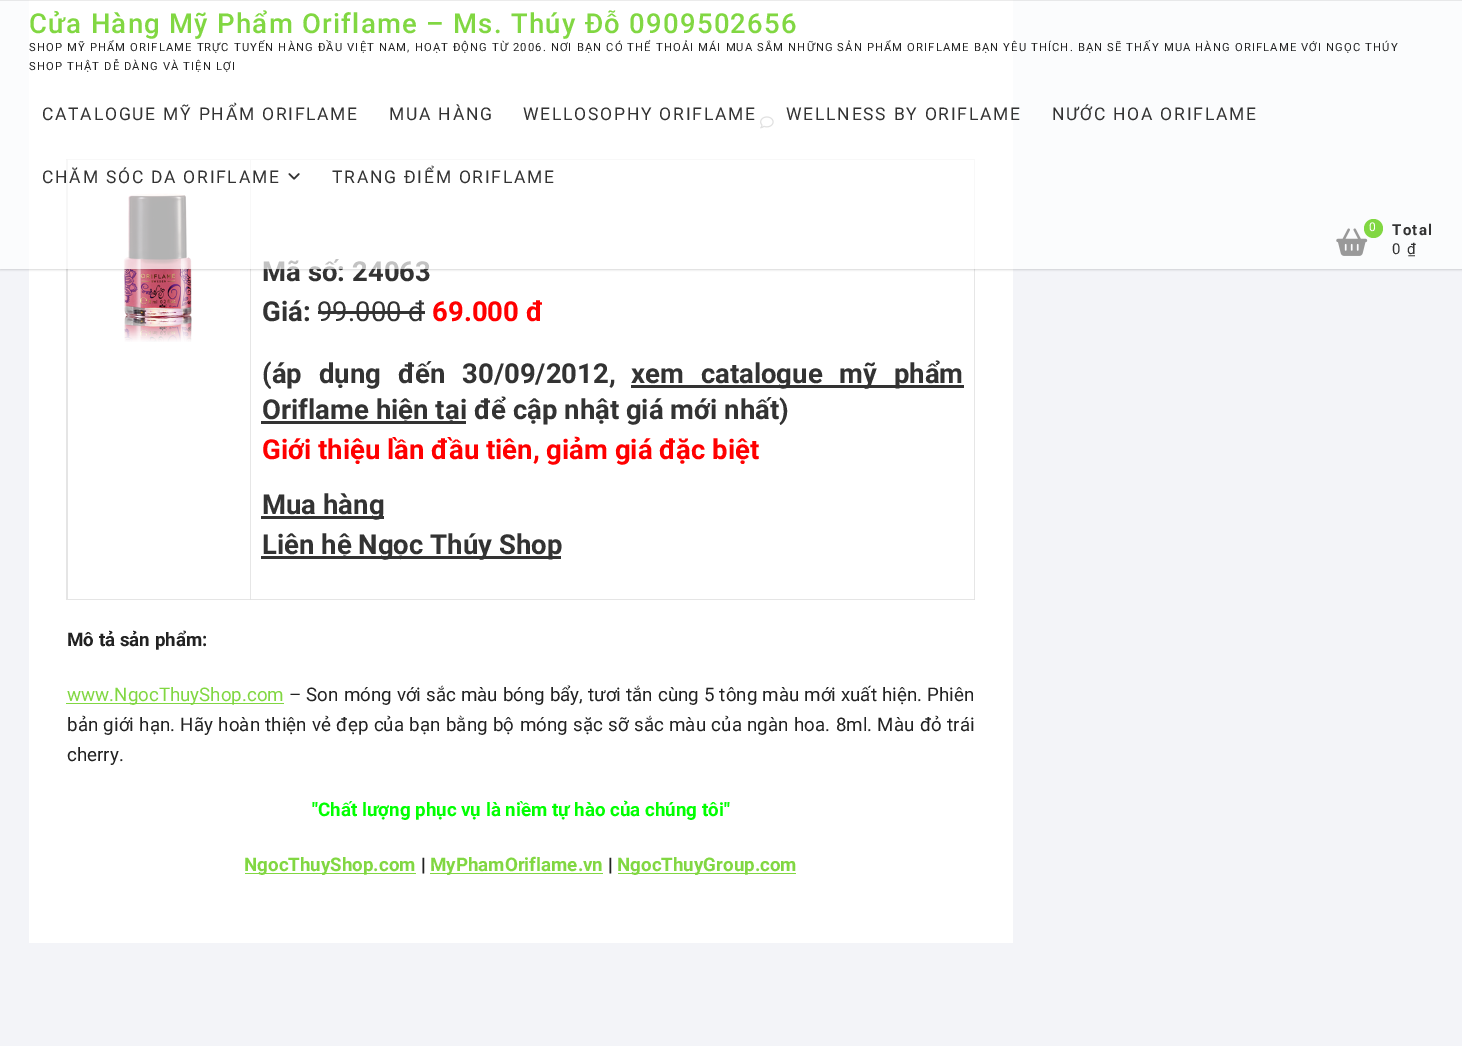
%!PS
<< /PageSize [1462 1046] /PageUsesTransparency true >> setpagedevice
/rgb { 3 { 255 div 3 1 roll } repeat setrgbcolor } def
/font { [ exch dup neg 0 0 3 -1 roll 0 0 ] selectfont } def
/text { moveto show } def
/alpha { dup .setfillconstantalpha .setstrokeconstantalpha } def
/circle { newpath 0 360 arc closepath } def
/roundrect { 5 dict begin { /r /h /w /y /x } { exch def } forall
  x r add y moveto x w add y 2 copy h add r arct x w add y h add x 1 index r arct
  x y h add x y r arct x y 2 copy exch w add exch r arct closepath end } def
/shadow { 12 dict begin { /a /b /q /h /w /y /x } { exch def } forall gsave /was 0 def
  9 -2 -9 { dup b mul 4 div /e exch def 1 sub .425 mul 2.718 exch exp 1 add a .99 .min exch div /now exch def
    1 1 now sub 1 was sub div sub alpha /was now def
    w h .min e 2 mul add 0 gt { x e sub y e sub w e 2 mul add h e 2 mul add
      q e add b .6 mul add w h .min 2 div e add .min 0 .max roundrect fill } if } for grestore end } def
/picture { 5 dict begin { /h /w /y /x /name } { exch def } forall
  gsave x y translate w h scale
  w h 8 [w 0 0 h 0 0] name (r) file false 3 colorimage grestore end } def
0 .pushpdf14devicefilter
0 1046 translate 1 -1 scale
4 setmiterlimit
243 244 248 rgb
0 0 1462 1046 rectfill
255 255 255 rgb
29 0 984 943 rectfill
(img_03.rgb) 760 116 14 13 picture
230 230 230 rgb
66 159 moveto 909 0 rlineto 0 1 rlineto -907 0 rlineto closepath fill
0.1 alpha
0 0 0 rgb
66 600 moveto 0 -441 rlineto 2 1 rlineto 0 440 rlineto closepath fill
1 alpha
230 230 230 rgb
251 160 moveto 0 440 rlineto -1 -1 rlineto 0 -439 rlineto closepath fill
(img_04.rgb) 123 193 69 149 picture
975 160 moveto 0 440 rlineto -1 -1 rlineto 0 -439 rlineto closepath fill
gsave
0 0 moveto 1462 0 rlineto 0 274 rlineto -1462 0 rlineto closepath 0 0 moveto 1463 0 rlineto 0 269 rlineto -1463 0 rlineto closepath eoclip newpath
0 0 0 rgb
0 1 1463 269 0 1 0.15 shadow
grestore
0.1 alpha
0 0 0 rgb
251 600 moveto -183 0 rlineto 0 -1 rlineto 182 0 rlineto closepath fill
975 600 moveto -724 0 rlineto 0 -1 rlineto 723 0 rlineto closepath fill
1 alpha
51 51 51 rgb
631 385 333 3 rectfill
261 421 205 3 rectfill
261 516 123 3 rectfill
261 556 300 3 rectfill
318 311 107 3 rectfill
129 215 66 rgb
66 703 218 1 rectfill
245 873 171 1 rectfill
430 873 173 1 rectfill
618 873 178 1 rectfill
/Roboto-Bold 27.5 font
51 51 51 rgb
(Mã số: 24063) 262 281 text
0.7 alpha
255 255 255 rgb
0 0 1462 269 rectfill
1 alpha
(img_02.rgb) 1336 228 32 28 picture
129 215 66 rgb
1373.5 228.5 9.5 circle fill
/Roboto-Regular 12 font
255 255 255 rgb
(0) 1369 231 text
/Roboto-Regular 15 font
51 51 51 rgb
1392 254 moveto 1.25 0 (0 ₫) ashow
/Roboto-Bold 15 font
1392 235 moveto 1.25 0 (Total) ashow
/Roboto-Regular 17.5 font
332 183 moveto 1.75 0 (TRANG ĐIỂM ORIFLAME) ashow
(img_01.rgb) 288 173 12 7 picture
42 183 moveto 1.75 0 (CHĂM SÓC DA ORIFLAME) ashow
1052 120 moveto 1.75 0 (NƯỚC HOA ORIFLAME) ashow
786 120 moveto 1.75 0 (WELLNESS BY ORIFLAME) ashow
523 120 moveto 1.75 0 (WELLOSOPHY ORIFLAME) ashow
389 120 moveto 1.75 0 (MUA HÀNG) ashow
42 120 moveto 1.75 0 (CATALOGUE MỸ PHẨM ORIFLAME) ashow
/Roboto-Regular 11.25 font
34 34 34 rgb
29 70 moveto 1.12 0 (SHOP THẬT DỄ DÀNG VÀ TIỆN LỢI) ashow
29 51 moveto 1.12 0 (SHOP MỸ PHẨM ORIFLAME TRỰC TUYẾN HÀNG ĐẦU VIỆT NAM, HOẠT ĐỘNG TỪ 2006. NƠI BẠN CÓ THỂ THOẢI MÁI MUA SẮM NHỮNG SẢN PHẨM ORIFLAME BẠN YÊU THÍCH. BẠN SẼ THẤY MUA HÀNG ORIFLAME VỚI NGỌC THÚY) ashow
/Roboto-Medium 27.5 font
129 215 66 rgb
29 33 moveto 1.25 0 (Cửa Hàng Mỹ Phẩm Oriflame – Ms. Thúy Đỗ 0909502656) ashow
0.08 alpha
0 0 0 rgb
0 0 1462 1 rectfill
/Roboto-Bold 27.5 font
1 alpha
51 51 51 rgb
(Giá:) 262 321 text
255 0 0 rgb
(69.000 đ) 432 321 text
51 51 51 rgb
262 383 moveto 10 0 32 (\(áp dụng đến 30/09/2012,) widthshow
631 383 moveto 10 0 32 (xem catalogue mỹ phẩm) widthshow
(Oriflame hiện tại để cập nhật giá mới nhất\)) 262 419 text
255 0 0 rgb
(Giới thiệu lần đầu tiên, giảm giá đặc biệt) 262 459 text
51 51 51 rgb
(Mua hàng) 262 514 text
(Liên hệ Ngọc Thúy Shop) 262 554 text
/Roboto-Regular 27.5 font
(99.000 đ) 317 321 text
/Roboto-Bold 18.75 font
34 34 34 rgb
(Mô tả sản phẩm:) 67 646 text
/Roboto-Regular 18.75 font
129 215 66 rgb
(www.NgocThuyShop.com) 67 701 text
34 34 34 rgb
289 701 moveto 0.4 0 32 (– Son móng với sắc màu bóng bẩy, tươi tắn cùng 5 tông màu mới xuất hiện. Phiên) widthshow
67 731 moveto 0.8 0 32 (bản giới hạn. Hãy hoàn thiện vẻ đẹp của bạn bằng bộ móng sặc sỡ sắc màu của ngàn hoa. 8ml. Màu đỏ trái) widthshow
(cherry.) 67 761 text
/Roboto-Bold 18.75 font
0 255 0 rgb
("Chất lượng phục vụ là niềm tự hào của chúng tôi") 312 816 text
129 215 66 rgb
(NgocThuyShop.com) 244 871 text
34 34 34 rgb
(|) 421 871 text
129 215 66 rgb
(MyPhamOriflame.vn) 430 871 text
34 34 34 rgb
(|) 608 871 text
129 215 66 rgb
(NgocThuyGroup.com) 617 871 text
.poppdf14devicefilter showpage
